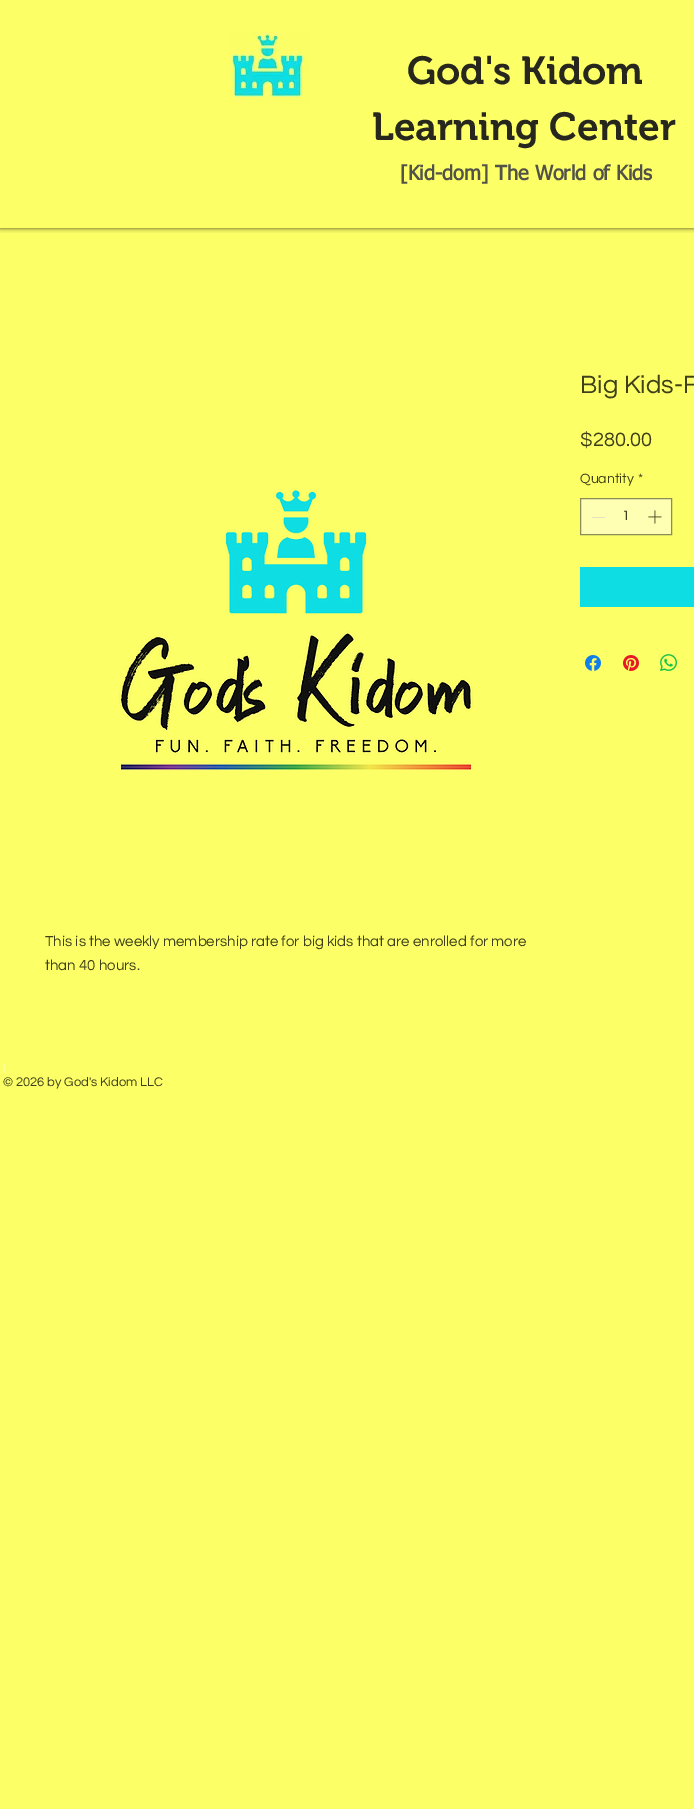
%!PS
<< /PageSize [694 1809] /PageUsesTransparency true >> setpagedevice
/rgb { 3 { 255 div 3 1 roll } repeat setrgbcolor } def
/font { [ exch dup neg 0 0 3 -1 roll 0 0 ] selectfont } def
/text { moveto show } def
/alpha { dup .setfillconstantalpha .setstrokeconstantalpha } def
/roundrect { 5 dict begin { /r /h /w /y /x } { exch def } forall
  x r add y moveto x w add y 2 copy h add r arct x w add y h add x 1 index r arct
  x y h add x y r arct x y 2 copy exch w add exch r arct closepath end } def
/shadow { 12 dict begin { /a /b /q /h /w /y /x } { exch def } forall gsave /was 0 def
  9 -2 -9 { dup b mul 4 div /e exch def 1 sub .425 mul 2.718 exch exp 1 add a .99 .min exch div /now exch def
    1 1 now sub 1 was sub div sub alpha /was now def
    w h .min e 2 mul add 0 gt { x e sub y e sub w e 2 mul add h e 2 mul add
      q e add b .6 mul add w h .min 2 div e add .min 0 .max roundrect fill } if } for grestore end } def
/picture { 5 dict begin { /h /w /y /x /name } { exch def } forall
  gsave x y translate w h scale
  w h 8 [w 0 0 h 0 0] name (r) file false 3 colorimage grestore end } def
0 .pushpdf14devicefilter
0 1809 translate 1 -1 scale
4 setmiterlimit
252 255 102 rgb
0 0 694 1809 rectfill
gsave
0 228 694 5 rectclip
0 0 0 rgb
0 0 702 228 0 2.5 0.7 shadow
grestore
(img_01.rgb) 228 31 82 73 picture
254 255 179 rgb
580.5 498.5 moveto 91 0 rlineto 0 36 rlineto -91 0 rlineto closepath gsave fill grestore
139 140 87 rgb
stroke
227 227 189 rgb
592 517 13 1 rectfill
(img_02.rgb) 648 510 14 14 picture
14 222 227 rgb
580 567 114 40 rectfill
(img_03.rgb) 585 655 16 16 picture
(img_04.rgb) 623 655 16 16 picture
(img_05.rgb) 660 654 17 17 picture
(img_06.rgb) 119 488 354 283 picture
/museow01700-SemiBold 39 font
39 39 30 rgb
(God's Kidom) 407 84 text
(Learning Center) 372 140 text
/tahoma-Bold 20 font
82 82 73 rgb
([Kid-dom] The World of Kids) 400 180 text
/Questrial-Regular 26 font
63 64 26 rgb
(Big Kids-F) 580 393 text
/Questrial-Regular 20 font
($280.00) 580 446 text
/Questrial-Regular 14 font
(Quantity) 580 483 text
(*) 638 483 text
(1) 622 520 text
/Questrial-Regular 15 font
(This is the weekly membership rate for big kids that are enrolled for more) 45 946 text
(than 40 hours.) 45 970 text
/Questrial-Regular 13 font
254 255 179 rgb
(\() 3 1072 text
63 64 26 rgb
(© 2026 by God's Kidom LLC) 3 1086 text
.poppdf14devicefilter showpage
